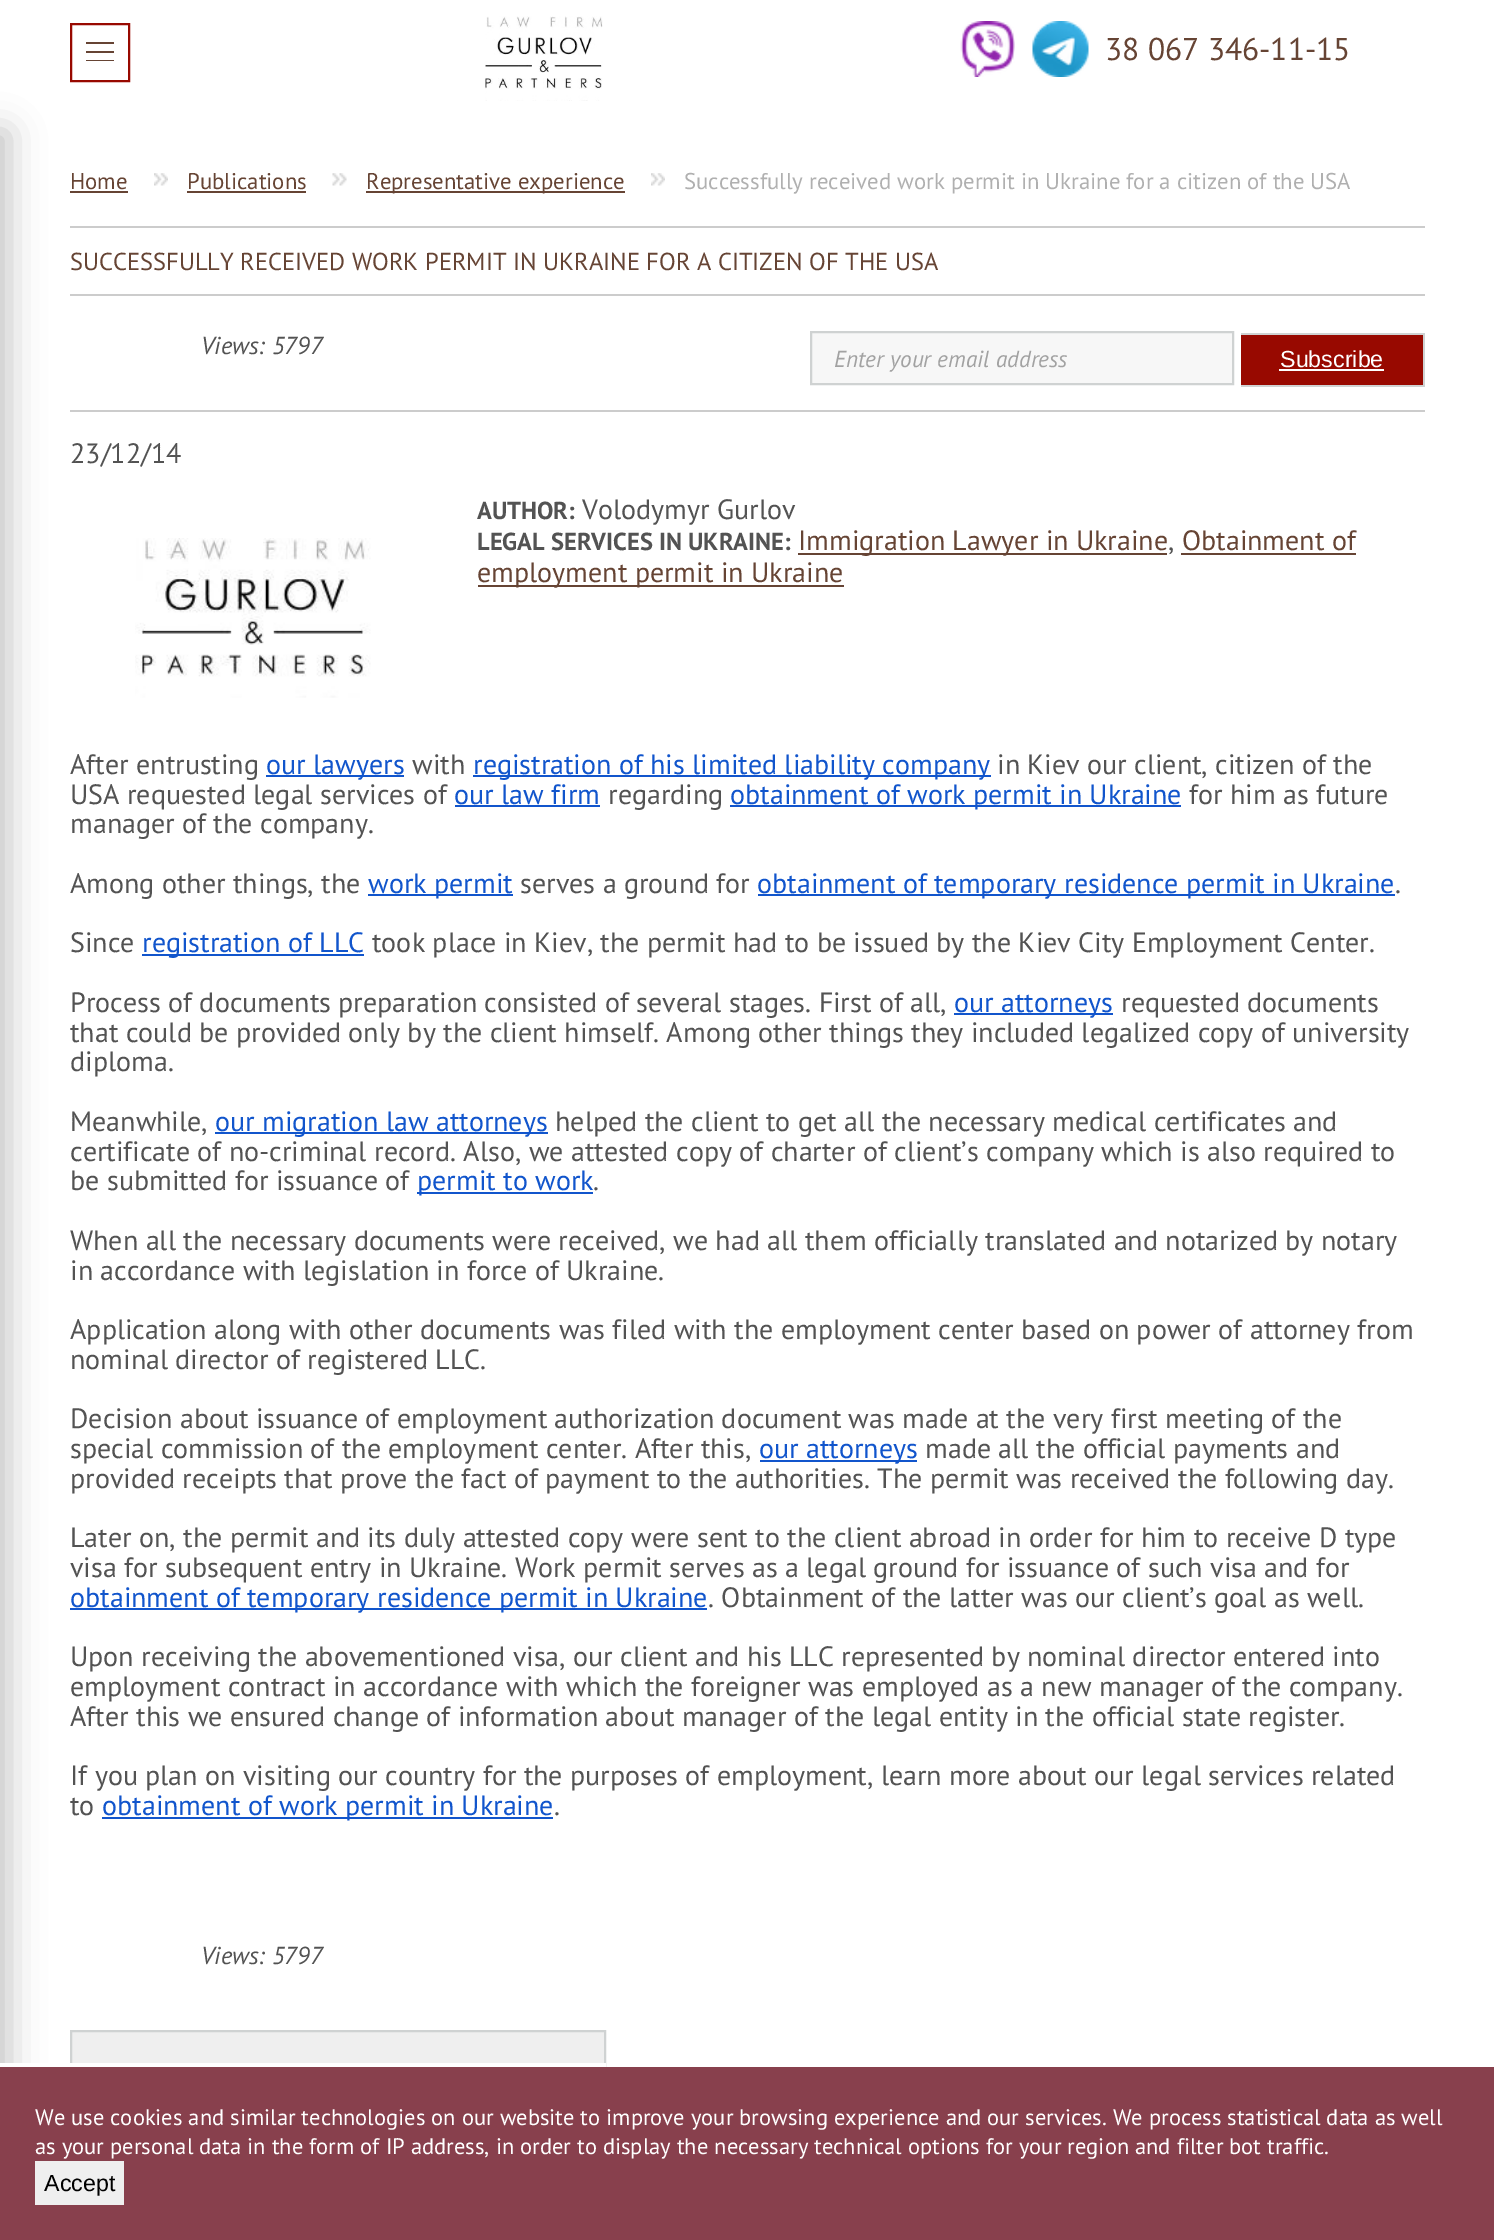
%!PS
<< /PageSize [1494 2240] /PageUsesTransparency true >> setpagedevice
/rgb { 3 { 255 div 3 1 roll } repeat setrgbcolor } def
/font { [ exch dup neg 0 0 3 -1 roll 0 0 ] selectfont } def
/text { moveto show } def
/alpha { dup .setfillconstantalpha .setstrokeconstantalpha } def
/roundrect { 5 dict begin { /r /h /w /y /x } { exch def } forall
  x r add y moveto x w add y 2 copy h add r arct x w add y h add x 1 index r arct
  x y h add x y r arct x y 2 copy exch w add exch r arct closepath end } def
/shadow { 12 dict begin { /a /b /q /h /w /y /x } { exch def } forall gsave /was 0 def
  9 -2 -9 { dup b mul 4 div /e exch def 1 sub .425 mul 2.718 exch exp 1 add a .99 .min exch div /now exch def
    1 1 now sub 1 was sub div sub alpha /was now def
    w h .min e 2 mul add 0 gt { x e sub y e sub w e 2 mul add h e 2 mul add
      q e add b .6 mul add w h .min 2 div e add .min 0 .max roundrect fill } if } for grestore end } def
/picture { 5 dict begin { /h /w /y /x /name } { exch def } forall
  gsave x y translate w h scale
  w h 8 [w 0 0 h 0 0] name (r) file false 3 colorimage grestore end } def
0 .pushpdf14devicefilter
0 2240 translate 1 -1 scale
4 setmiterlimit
255 255 255 rgb
0 0 1494 2240 rectfill
152 9 0 rgb
2 setlinewidth
71 24 58 57 rectstroke
102 68 52 rgb
86 42 28 2 rectfill
86 51 28 2 rectfill
86 60 28 1 rectfill
(img_01.rgb) 485 16 118 85 picture
(img_02.rgb) 960 21 55 56 picture
(img_03.rgb) 1032 21 57 56 picture
0 0 0 rgb
-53 131 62 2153 0 17.5 0.23 shadow
102 68 52 rgb
70 191 58 2 rectfill
(img_04.rgb) 154 173 14 13 picture
187 191 119 2 rectfill
(img_05.rgb) 332 173 15 13 picture
366 191 259 2 rectfill
(img_04.rgb) 651 173 14 13 picture
204 204 204 rgb
70 226 1355 2 rectfill
70 294 1355 2 rectfill
247 247 247 rgb
811 332 moveto 422 0 rlineto 0 52 rlineto -422 0 rlineto closepath gsave fill grestore
207 210 210 rgb
stroke
152 9 0 rgb
1241 335 182 50 rectfill
207 210 210 rgb
1241 333 184 2 rectfill
1423 333 2 54 rectfill
1241 385 184 2 rectfill
255 255 255 rgb
1279 369 105 2 rectfill
204 204 204 rgb
70 410 1355 2 rectfill
(img_06.rgb) 135 538 236 160 picture
102 68 52 rgb
798 553 369 2 rectfill
1181 553 175 2 rectfill
478 585 366 2 rectfill
17 85 204 rgb
266 775 138 2 rectfill
473 775 518 2 rectfill
455 805 145 2 rectfill
730 805 451 2 rectfill
368 894 145 2 rectfill
758 894 637 2 rectfill
142 954 222 2 rectfill
954 1013 159 2 rectfill
215 1132 333 2 rectfill
417 1192 176 2 rectfill
760 1460 157 2 rectfill
70 1608 637 2 rectfill
102 1817 451 2 rectfill
239 239 239 rgb
72 2032 532 31 rectfill
207 210 210 rgb
71 2031 534 93 rectstroke
136 64 77 rgb
0 2067 1494 173 rectfill
255 255 255 rgb
0 2063 606 4 rectfill
239 239 239 rgb
35 2161 89 44 rectfill
/PTSans-Regular 31.5 font
102 68 52 rgb
(38 067 346-11-15) 1105 60 text
/PTSans-Regular 22.75 font
(Home) 70 189 text
(Publications) 187 189 text
(Representative experience) 366 189 text
176 176 176 rgb
(Successfully received work permit in Ukraine for a citizen of the USA) 684 189 text
/PTSans-Regular 24.5 font
102 68 52 rgb
(SUCCESSFULLY RECEIVED WORK PERMIT IN UKRAINE FOR A CITIZEN OF THE USA) 70 270 text
/PTSans-Italic 24.5 font
83 83 83 rgb
(Views: 5797) 201 354 text
/PTSans-Italic 23.25 font
162 162 162 rgb
(Enter your email address) 834 367 text
/LiberationSans-Regular 23.25 font
255 255 255 rgb
(Subscribe) 1280 367 text
/PTSans-Regular 28 font
83 83 83 rgb
(23/12/14) 70 463 text
/PTSans-Bold 24.5 font
(AUTHOR:) 477 519 text
/PTSans-Regular 28 font
(Volodymyr Gurlov) 582 519 text
/PTSans-Bold 24.5 font
(LEGAL SERVICES IN UKRAINE:) 477 550 text
/PTSans-Regular 28 font
102 68 52 rgb
(Immigration Lawyer in Ukraine) 798 550 text
83 83 83 rgb
(,) 1168 550 text
102 68 52 rgb
(Obtainment of) 1182 550 text
(employment permit in Ukraine) 477 582 text
83 83 83 rgb
(After entrusting) 70 774 text
17 85 204 rgb
(our lawyers) 266 774 text
83 83 83 rgb
(with) 412 774 text
17 85 204 rgb
(registration of his limited liability company) 473 774 text
83 83 83 rgb
(in Kiev our client, citizen of the) 997 774 text
(USA requested legal services of) 70 804 text
17 85 204 rgb
(our law firm) 454 804 text
83 83 83 rgb
(regarding) 608 804 text
17 85 204 rgb
(obtainment of work permit in Ukraine) 730 804 text
83 83 83 rgb
(for him as future) 1189 804 text
(manager of the company.) 70 833 text
(Among other things, the) 70 893 text
17 85 204 rgb
(work permit) 368 893 text
83 83 83 rgb
(serves a ground for) 520 893 text
17 85 204 rgb
(obtainment of temporary residence permit in Ukraine) 757 893 text
83 83 83 rgb
(.) 1395 893 text
(Since) 70 952 text
17 85 204 rgb
(registration of LLC) 142 952 text
83 83 83 rgb
(took place in Kiev, the permit had to be issued by the Kiev City Employment Center.) 372 952 text
(Process of documents preparation consisted of several stages. First of all,) 70 1012 text
17 85 204 rgb
(our attorneys) 954 1012 text
83 83 83 rgb
(requested documents) 1121 1012 text
(that could be provided only by the client himself. Among other things they included legalized copy of university) 70 1042 text
(diploma.) 70 1071 text
(Meanwhile,) 70 1131 text
17 85 204 rgb
(our migration law attorneys) 215 1131 text
83 83 83 rgb
(helped the client to get all the necessary medical certificates and) 555 1131 text
(certificate of no-criminal record. Also, we attested copy of charter of client’s company which is also required to) 70 1161 text
(be submitted for issuance of) 70 1190 text
17 85 204 rgb
(permit to work) 417 1190 text
83 83 83 rgb
(.) 593 1190 text
(When all the necessary documents were received, we had all them officially translated and notarized by notary) 70 1250 text
(in accordance with legislation in force of Ukraine.) 70 1280 text
(Application along with other documents was filed with the employment center based on power of attorney from) 70 1339 text
(nominal director of registered LLC.) 70 1369 text
(Decision about issuance of employment authorization document was made at the very first meeting of the) 70 1428 text
(special commission of the employment center. After this,) 70 1458 text
17 85 204 rgb
(our attorneys) 759 1458 text
83 83 83 rgb
(made all the official payments and) 925 1458 text
(provided receipts that prove the fact of payment to the authorities. The permit was received the following day.) 70 1488 text
(Later on, the permit and its duly attested copy were sent to the client abroad in order for him to receive D type) 70 1547 text
(visa for subsequent entry in Ukraine. Work permit serves as a legal ground for issuance of such visa and for) 70 1577 text
17 85 204 rgb
(obtainment of temporary residence permit in Ukraine) 70 1607 text
83 83 83 rgb
(. Obtainment of the latter was our client’s goal as well.) 708 1607 text
(Upon receiving the abovementioned visa, our client and his LLC represented by nominal director entered into) 70 1666 text
(employment contract in accordance with which the foreigner was employed as a new manager of the company.) 70 1696 text
(After this we ensured change of information about manager of the legal entity in the official state register.) 70 1726 text
(If you plan on visiting our country for the purposes of employment, learn more about our legal services related) 70 1785 text
(to) 70 1815 text
17 85 204 rgb
(obtainment of work permit in Ukraine) 102 1815 text
83 83 83 rgb
(.) 554 1815 text
/PTSans-Italic 24.5 font
(Views: 5797) 201 1964 text
/PTSans-Regular 22.55 font
255 255 255 rgb
(We use cookies and similar technologies on our website to improve your browsing experience and our services. We process statistical data as well) 35 2125 text
(as your personal data in the form of IP address, in order to display the necessary technical options for your region and filter bot traffic.) 35 2154 text
/LiberationSans-Regular 23.25 font
0 0 0 rgb
(Accept) 44 2191 text
.poppdf14devicefilter showpage
